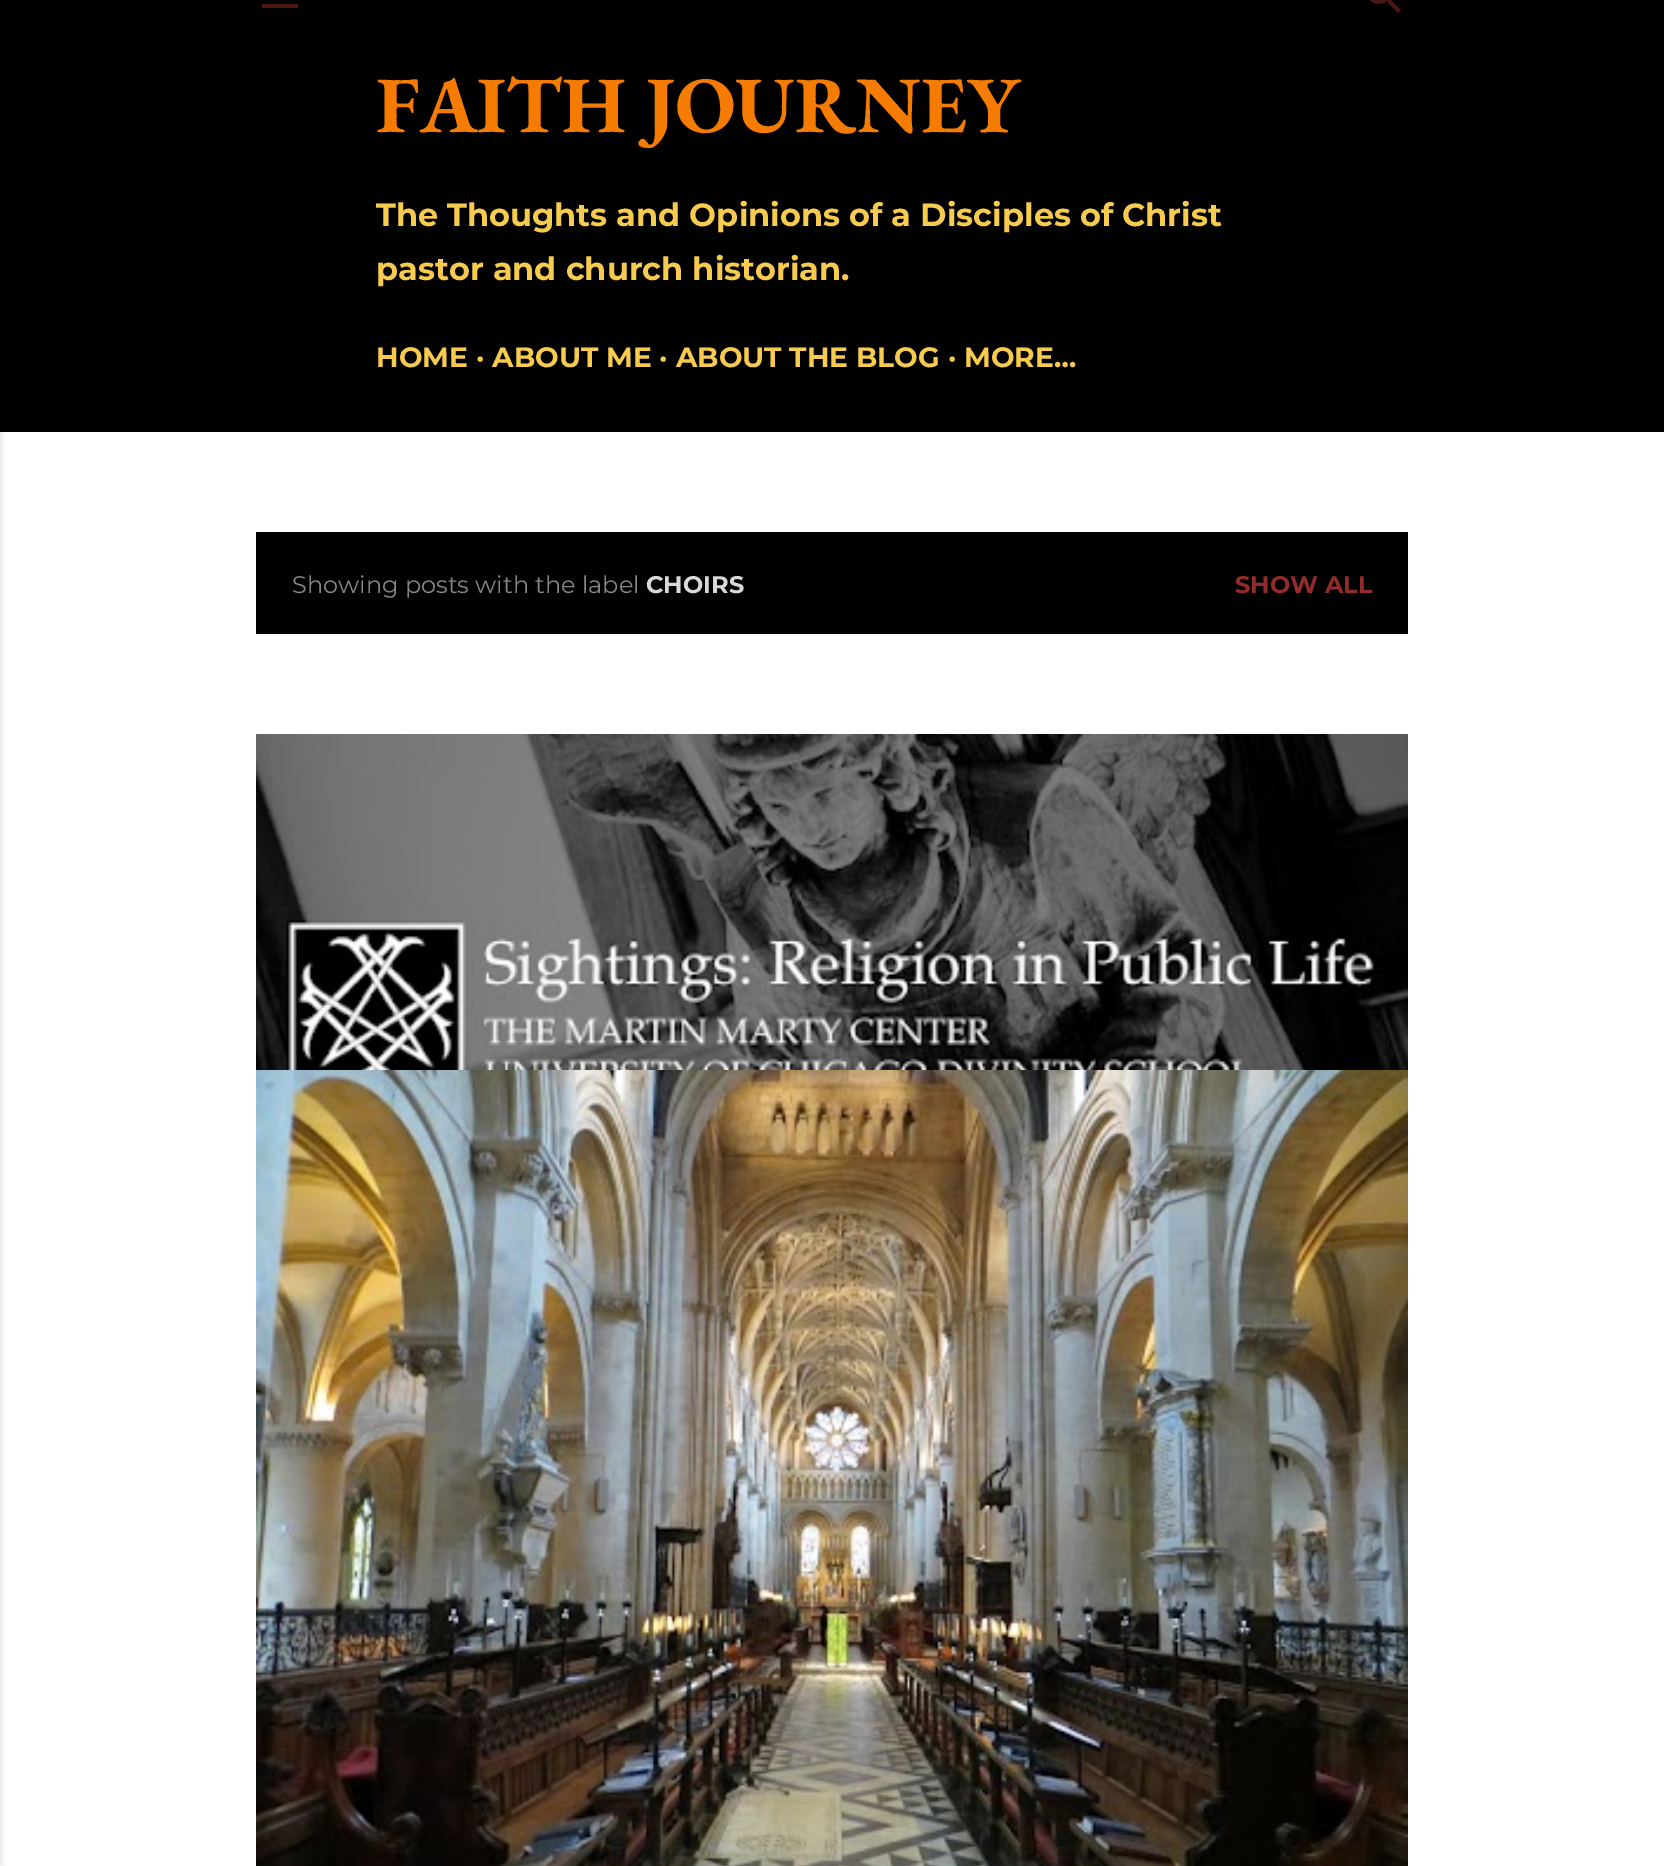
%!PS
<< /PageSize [1664 1866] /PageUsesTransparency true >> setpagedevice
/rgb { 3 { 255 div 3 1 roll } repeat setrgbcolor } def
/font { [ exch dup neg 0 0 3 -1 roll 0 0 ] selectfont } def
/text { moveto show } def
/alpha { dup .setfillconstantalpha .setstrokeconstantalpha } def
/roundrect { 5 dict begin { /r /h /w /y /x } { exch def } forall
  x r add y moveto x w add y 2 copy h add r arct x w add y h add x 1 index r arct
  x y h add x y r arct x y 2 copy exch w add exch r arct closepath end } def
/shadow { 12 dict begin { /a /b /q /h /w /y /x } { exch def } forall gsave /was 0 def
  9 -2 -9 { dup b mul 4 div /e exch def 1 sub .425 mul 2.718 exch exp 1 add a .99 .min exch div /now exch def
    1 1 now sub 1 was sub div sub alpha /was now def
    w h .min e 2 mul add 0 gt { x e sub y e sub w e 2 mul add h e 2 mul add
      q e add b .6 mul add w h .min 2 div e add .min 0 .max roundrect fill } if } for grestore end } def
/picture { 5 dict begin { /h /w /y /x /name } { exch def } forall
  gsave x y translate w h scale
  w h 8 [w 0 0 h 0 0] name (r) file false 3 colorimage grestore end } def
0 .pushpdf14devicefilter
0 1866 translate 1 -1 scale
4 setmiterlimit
255 255 255 rgb
0 0 1664 1866 rectfill
0 0 0 rgb
0 0 1664 432 rectfill
-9 0 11 1866 0 3 0.1 shadow
74 22 22 rgb
262 4 36 4 rectfill
(img_01.rgb) 1369 0 32 13 picture
0 0 0 rgb
256 532 1152 102 rectfill
(img_02.rgb) 256 734 1152 336 picture
(img_03.rgb) 256 1070 1152 796 picture
/EBGaramond-Bold 80 font
245 124 0 rgb
(FAITH JOURNEY) 376 132 text
/Montserrat-Bold 32 font
247 203 77 rgb
(The Thoughts and Opinions of a Disciples of Christ) 376 226 text
(pastor and church historian.) 376 280 text
/Montserrat-Bold 28 font
(HOME · ABOUT ME · ABOUT THE BLOG · MORE…) 376 367 text
/Montserrat-Regular 24 font
134 134 134 rgb
(Showing posts with the label) 292 593 text
/Montserrat-Bold 24 font
217 217 217 rgb
(CHOIRS) 646 593 text
148 43 43 rgb
(SHOW ALL) 1235 593 text
.poppdf14devicefilter showpage
